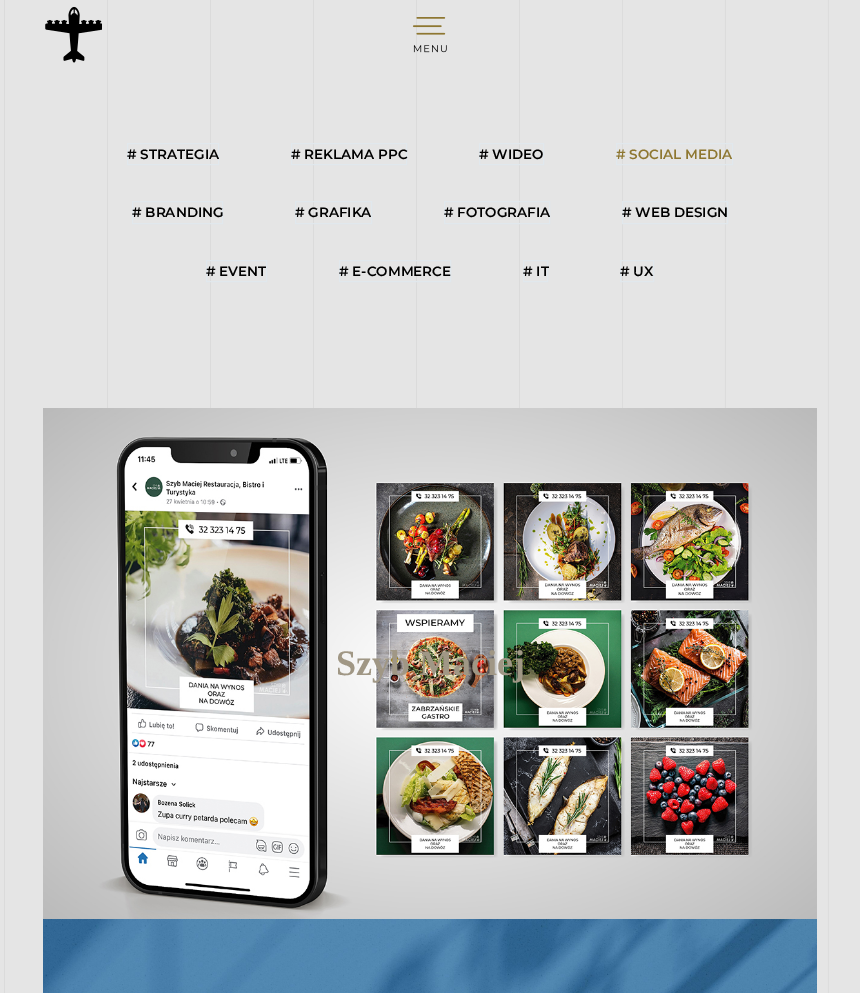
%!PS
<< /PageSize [860 993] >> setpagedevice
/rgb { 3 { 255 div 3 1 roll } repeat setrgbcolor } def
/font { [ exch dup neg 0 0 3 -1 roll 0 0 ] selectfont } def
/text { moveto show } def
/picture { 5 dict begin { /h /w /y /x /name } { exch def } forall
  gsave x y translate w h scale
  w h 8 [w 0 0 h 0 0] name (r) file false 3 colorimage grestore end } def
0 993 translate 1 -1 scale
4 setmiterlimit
229 229 229 rgb
0 0 860 993 rectfill
(img_01.rgb) 4 70 825 923 picture
(img_02.rgb) 4 0 825 70 picture
(img_03.rgb) 45 6 57 57 picture
(img_04.rgb) 412 17 35 36 picture
225 232 237 rgb
127.5 143.5 91 21 rectstroke
291.5 143.5 115 21 rectstroke
479.5 143.5 64 21 rectstroke
616.5 143.5 116 21 rectstroke
132.5 201.5 90 22 rectstroke
295.5 201.5 76 22 rectstroke
444.5 201.5 105 22 rectstroke
622.5 201.5 105 22 rectstroke
206.5 260.5 60 21 rectstroke
339.5 260.5 111 21 rectstroke
523.5 260.5 24 21 rectstroke
620.5 260.5 33 21 rectstroke
(img_05.rgb) 43 408 774 511 picture
(img_06.rgb) 43 919 774 74 picture
/Montserrat-SemiBold 13.5 font
0 0 0 rgb
(# STRATEGIA) 127 159 text
(# REKLAMA PPC) 291 159 text
(# WIDEO) 479 159 text
142 119 49 rgb
(# SOCIAL MEDIA) 616 159 text
0 0 0 rgb
(# BRANDING) 132 217 text
(# GRAFIKA) 295 217 text
(# FOTOGRAFIA) 444 217 text
(# WEB DESIGN) 622 217 text
(# EVENT) 206 276 text
(# E-COMMERCE) 339 276 text
(# IT) 523 276 text
(# UX) 620 276 text
/LiberationSerif-Bold 36 font
160 151 133 rgb
(Szyb Maciej) 336 675 text
showpage
